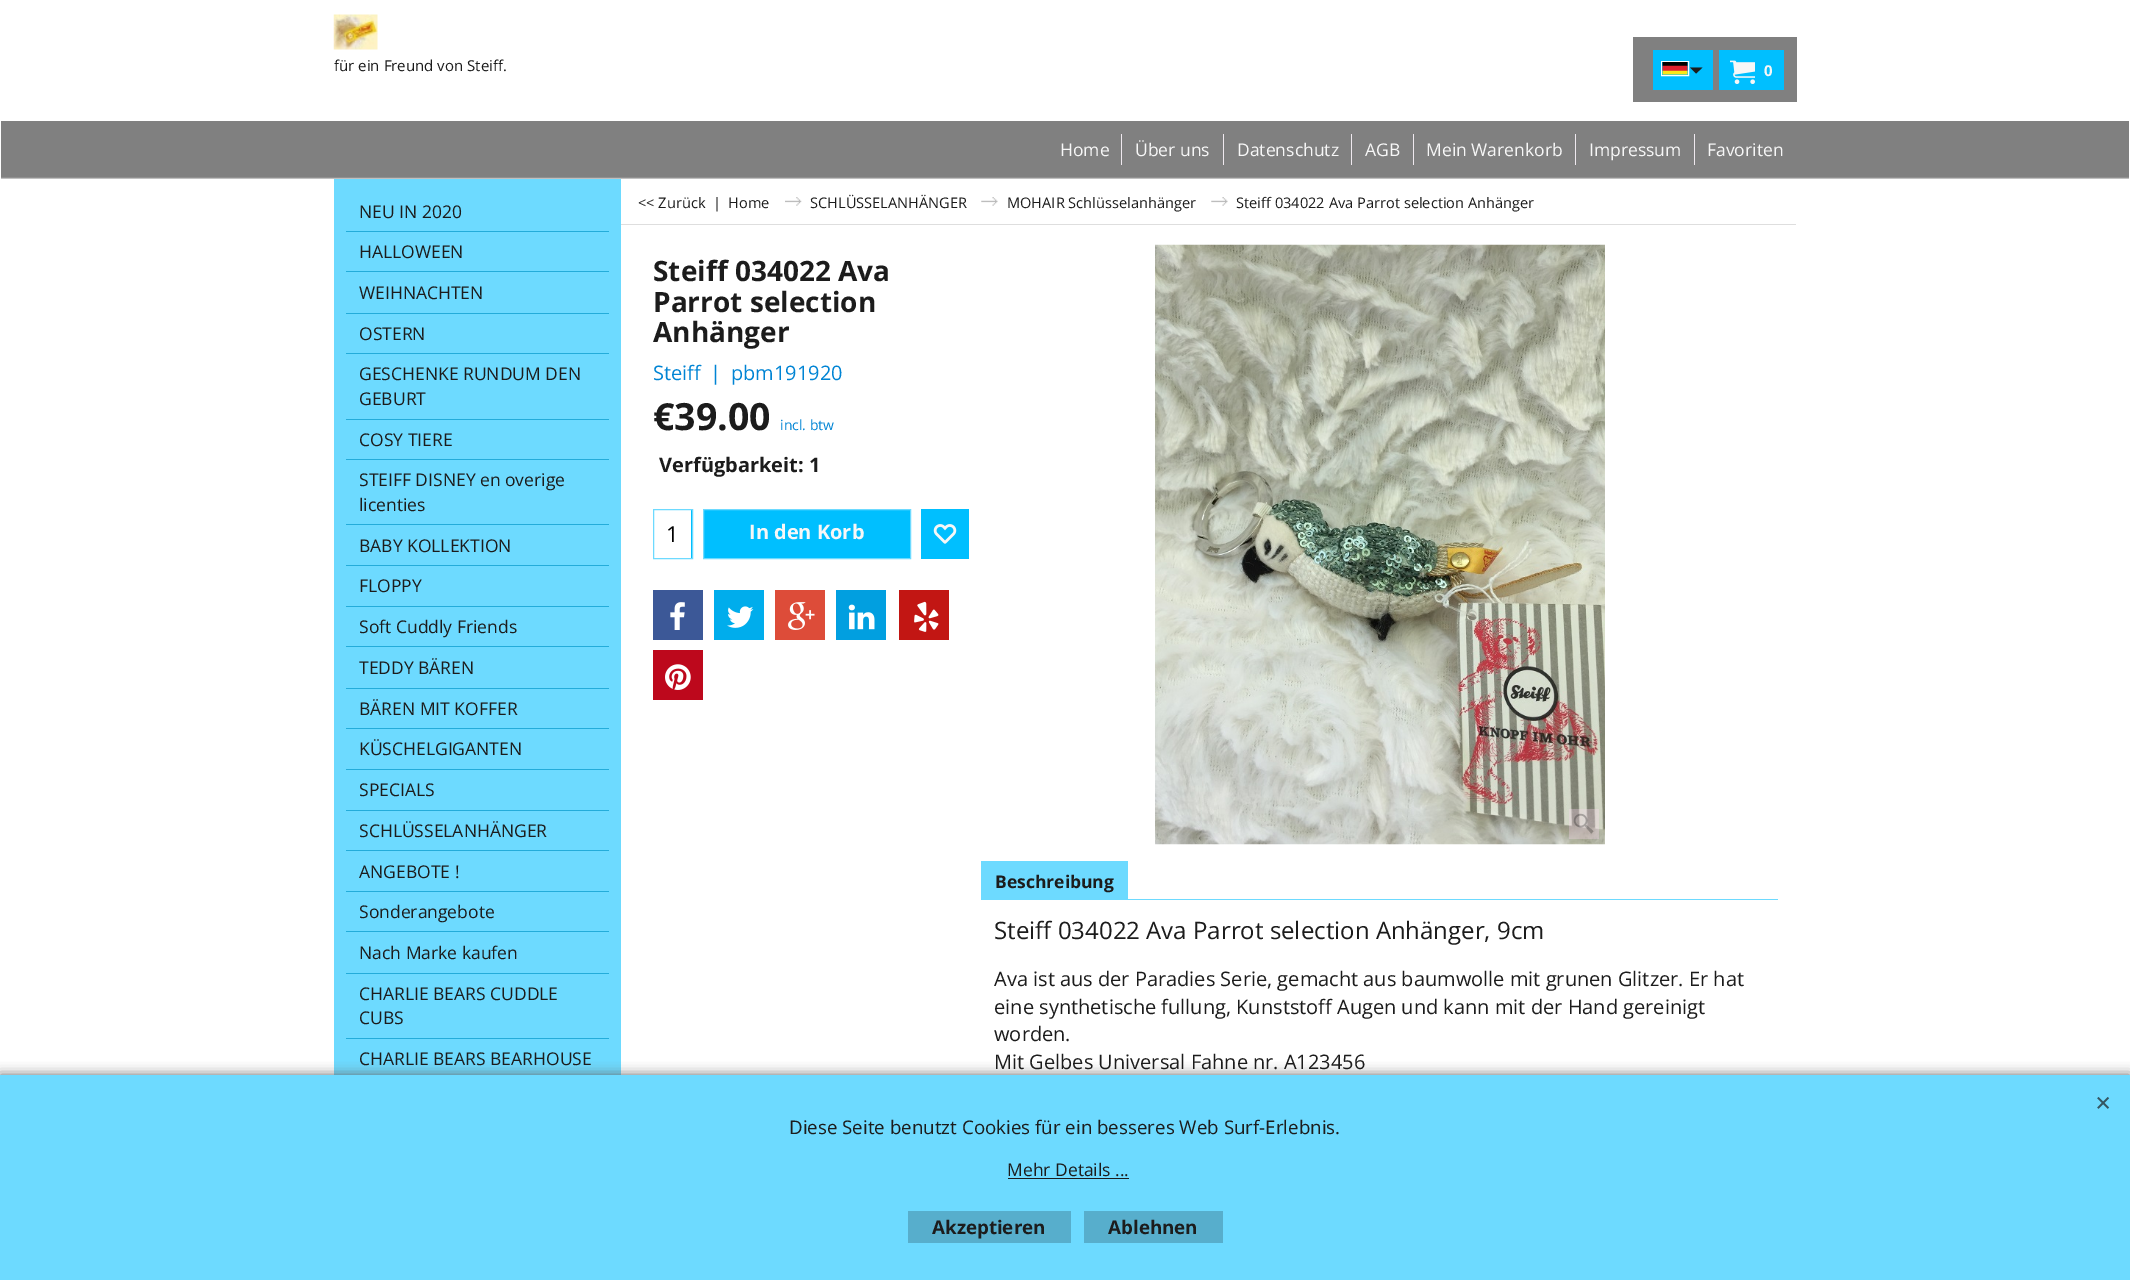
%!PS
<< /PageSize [2130 1280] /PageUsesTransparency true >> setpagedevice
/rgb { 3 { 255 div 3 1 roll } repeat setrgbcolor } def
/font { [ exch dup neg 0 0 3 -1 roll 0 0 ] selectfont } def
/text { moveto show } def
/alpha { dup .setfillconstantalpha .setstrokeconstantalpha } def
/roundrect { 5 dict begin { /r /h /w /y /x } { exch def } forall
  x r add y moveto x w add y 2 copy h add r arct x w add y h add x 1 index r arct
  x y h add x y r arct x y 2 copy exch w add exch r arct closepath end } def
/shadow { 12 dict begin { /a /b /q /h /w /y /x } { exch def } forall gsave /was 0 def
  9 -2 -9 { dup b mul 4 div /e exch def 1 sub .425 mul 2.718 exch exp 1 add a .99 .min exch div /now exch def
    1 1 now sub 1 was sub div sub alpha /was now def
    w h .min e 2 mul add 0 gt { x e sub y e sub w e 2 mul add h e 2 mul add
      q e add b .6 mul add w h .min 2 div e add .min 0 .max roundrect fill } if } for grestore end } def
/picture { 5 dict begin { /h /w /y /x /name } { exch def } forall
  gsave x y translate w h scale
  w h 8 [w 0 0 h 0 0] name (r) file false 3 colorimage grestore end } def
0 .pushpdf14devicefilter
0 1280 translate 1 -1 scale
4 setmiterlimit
255 255 255 rgb
0 0 2130 1280 rectfill
(img_01.rgb) 333 14 45 36 picture
128 128 128 rgb
1633 37 164 65 rectfill
0 191 255 rgb
1653 50 60 40 rectfill
255 255 255 rgb
1661.5 61.5 27 14 rectstroke
(img_02.rgb) 1662 62 26 13 picture
28 28 28 rgb
1690 67.5 moveto 6 6 rlineto 6.5 -6 rlineto closepath fill
0 191 255 rgb
1719 50 65 40 rectfill
(img_03.rgb) 1730 60 25 24 picture
(img_04.rgb) 1 121 2128 58 picture
239 233 239 rgb
1121 134 1 31 rectfill
1223 134 1 31 rectfill
1351 134 1 31 rectfill
1413 134 1 31 rectfill
1575 134 1 31 rectfill
1694 134 1 31 rectfill
109 218 255 rgb
334 179 287 896 rectfill
36 172 218 rgb
346 231 263 1 rectfill
346 271 263 1 rectfill
346 313 263 1 rectfill
346 353 263 1 rectfill
346 419 263 1 rectfill
346 459 263 1 rectfill
346 524 263 1 rectfill
346 565 263 1 rectfill
346 606 263 1 rectfill
346 646 263 1 rectfill
346 688 263 1 rectfill
346 728 263 1 rectfill
346 769 263 1 rectfill
346 810 263 1 rectfill
346 850 263 1 rectfill
346 891 263 1 rectfill
346 931 263 1 rectfill
346 973 263 1 rectfill
346 1038 263 1 rectfill
222 222 222 rgb
621 224 1175 1 rectfill
(img_05.rgb) 785 197 17 9 picture
(img_06.rgb) 981 197 17 9 picture
(img_06.rgb) 1211 197 17 9 picture
0 191 255 rgb
691 510 1 48 rectfill
109 218 255 rgb
653.5 509.5 39 49 rectstroke
0 191 255 rgb
703.5 509.5 moveto 207 0 rlineto 0 49 rlineto -207 0 rlineto closepath gsave fill grestore
109 218 255 rgb
stroke
0 191 255 rgb
921 509 48 50 rectfill
(img_07.rgb) 933 524 24 20 picture
60 88 151 rgb
653 590 50 50 rectfill
(img_08.rgb) 670 602 15 28 picture
0 173 236 rgb
714 590 50 50 rectfill
(img_09.rgb) 727 606 27 22 picture
221 76 57 rgb
775 590 50 50 rectfill
(img_10.rgb) 788 602 27 28 picture
1 159 224 rgb
836 590 50 50 rectfill
(img_11.rgb) 848 604 27 26 picture
194 22 19 rgb
899 590 50 50 rectfill
(img_12.rgb) 914 601 25 31 picture
189 8 28 rgb
653 650 50 50 rectfill
(img_13.rgb) 665 664 26 26 picture
(img_14.rgb) 1155 244 450 601 picture
0.3 alpha
255 219 245 rgb
1569 809 30 30 rectfill
1 alpha
(img_15.rgb) 1573 813 21 21 picture
109 218 255 rgb
981 861 147 39 rectfill
1128 899 650 1 rectfill
102 102 102 rgb
0 1075 2130 205 0 6 1 shadow
109 218 255 rgb
0 1075 2130 205 rectfill
(img_16.rgb) 2097 1097 13 12 picture
28 28 28 rgb
1008 1178 121 1 rectfill
87 174 204 rgb
908 1211 163 32 rectfill
1084 1211 139 32 rectfill
/OpenSans-Regular 15 font
28 28 28 rgb
(für ein Freund von Steiff.) 334 71 text
/OpenSans-Bold 15 font
247 247 247 rgb
(0) 1764 76 text
/OpenSans-Regular 17.5 font
(Home) 1060 156 text
(Über uns) 1135 156 text
(Datenschutz) 1237 156 text
(AGB) 1365 156 text
(Mein Warenkorb) 1426 156 text
(Impressum) 1589 156 text
(Favoriten) 1707 156 text
28 28 28 rgb
(NEU IN 2020) 359 218 text
(HALLOWEEN) 359 258 text
(WEIHNACHTEN) 359 299 text
(OSTERN) 359 340 text
(GESCHENKE RUNDUM DEN) 359 380 text
(GEBURT) 359 405 text
(COSY TIERE) 359 446 text
(STEIFF DISNEY en overige) 359 486 text
(licenties) 359 511 text
(BABY KOLLEKTION) 359 552 text
(FLOPPY) 359 592 text
(Soft Cuddly Friends) 359 633 text
(TEDDY BÄREN) 359 674 text
(BÄREN MIT KOFFER) 359 715 text
(KÜSCHELGIGANTEN) 359 755 text
(SPECIALS) 359 796 text
(SCHLÜSSELANHÄNGER) 359 837 text
(ANGEBOTE !) 359 878 text
(Sonderangebote) 359 918 text
(Nach Marke kaufen) 359 959 text
(CHARLIE BEARS CUDDLE) 359 1000 text
(CUBS) 359 1024 text
(CHARLIE BEARS BEARHOUSE) 359 1065 text
/OpenSans-Regular 14.6 font
(<< Zurück) 638 208 text
(|) 713 208 text
(Home) 728 208 text
(SCHLÜSSELANHÄNGER) 810 208 text
(MOHAIR Schlüsselanhänger) 1007 208 text
(Steiff 034022 Ava Parrot selection Anhänger) 1236 208 text
/OpenSans-Bold 28 font
(Steiff 034022 Ava) 653 281 text
(Parrot selection) 653 312 text
(Anhänger) 653 342 text
/OpenSans-Regular 20 font
0 132 212 rgb
(Steiff) 653 380 text
(|) 710 380 text
(pbm191920) 731 380 text
/OpenSans-Bold 37.5 font
28 28 28 rgb
(€39.00) 653 430 text
/OpenSans-Regular 14 font
0 132 212 rgb
(incl. btw) 780 430 text
/OpenSans-Bold 20 font
28 28 28 rgb
(Verfügbarkeit: 1) 659 472 text
/OpenSans-Regular 22 font
0 0 0 rgb
(1) 666 542 text
/OpenSans-Bold 20 font
247 247 247 rgb
(In den Korb) 749 539 text
/OpenSans-Bold 17.5 font
28 28 28 rgb
(Beschreibung) 995 888 text
/OpenSans-Regular 24 font
(Steiff 034022 Ava Parrot selection Anhänger, 9cm) 994 939 text
/OpenSans-Regular 20 font
(Ava ist aus der Paradies Serie, gemacht aus baumwolle mit grunen Glitzer. Er hat) 994 986 text
(eine synthetische fullung, Kunststoff Augen und kann mit der Hand gereinigt) 994 1014 text
(worden.) 994 1041 text
(Mit Gelbes Universal Fahne nr. A123456) 994 1069 text
/OpenSans-Regular 18.75 font
(Diese Seite benutzt Cookies für ein besseres Web Surf-Erlebnis.) 789 1134 text
/OpenSans-Regular 17.5 font
(Mehr Details ...) 1007 1176 text
/OpenSans-Bold 18.75 font
(Akzeptieren) 932 1234 text
(Ablehnen) 1108 1234 text
.poppdf14devicefilter showpage
